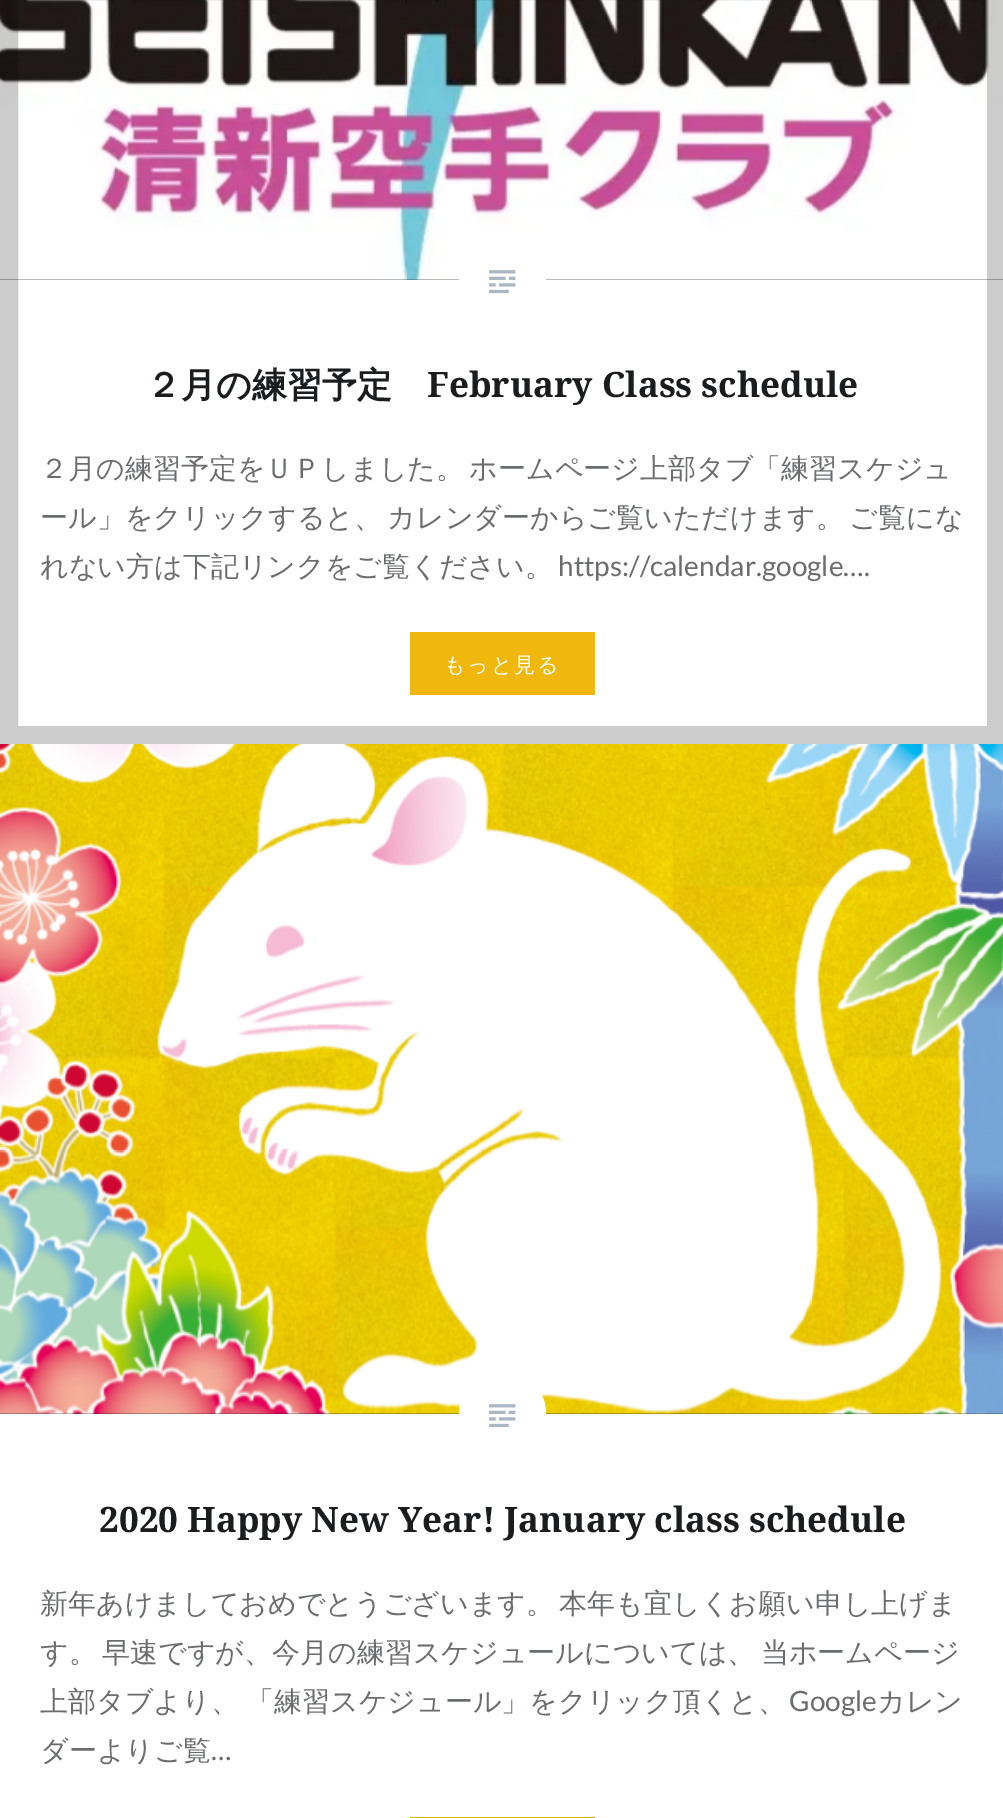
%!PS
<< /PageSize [1003 1818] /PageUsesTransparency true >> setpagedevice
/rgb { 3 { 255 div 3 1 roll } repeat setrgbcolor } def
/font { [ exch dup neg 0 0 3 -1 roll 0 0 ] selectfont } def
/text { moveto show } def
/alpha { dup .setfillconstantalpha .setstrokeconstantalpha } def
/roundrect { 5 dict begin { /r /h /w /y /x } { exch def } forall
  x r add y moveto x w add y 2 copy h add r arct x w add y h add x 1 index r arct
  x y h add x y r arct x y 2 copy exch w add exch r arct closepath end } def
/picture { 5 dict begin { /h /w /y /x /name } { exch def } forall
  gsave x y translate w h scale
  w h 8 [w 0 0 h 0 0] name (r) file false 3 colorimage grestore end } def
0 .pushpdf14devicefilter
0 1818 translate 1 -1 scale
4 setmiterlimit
255 255 255 rgb
0 0 1003 1818 rectfill
36 38 41 rgb
0 279 1003 1 rectfill
(img_01.rgb) 0 0 1003 280 picture
255 255 255 rgb
459 236 87 88 43.5 roundrect fill
0.2 alpha
0 0 0 rgb
18 setlinewidth
9 -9 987 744 rectstroke
1 alpha
(img_02.rgb) 489 270 27 24 picture
240 184 14 rgb
410 632 185 63 rectfill
36 38 41 rgb
0 1413 1003 1 rectfill
(img_03.rgb) 0 744 1003 670 picture
255 255 255 rgb
459 1370 87 88 43.5 roundrect fill
(img_02.rgb) 489 1404 27 24 picture
231 174 1 rgb
410 1817 185 1 rectfill
/WenQuanYiZenHei-Bold 35 font
26 28 30 rgb
(２月の練習予定) 146 397 text
/NotoSerif-Bold 35 font
(February Class schedule) 427 397 text
/WenQuanYiZenHei-Medium 28 font
106 108 110 rgb
40 478 moveto -3 0 32 (２月の練習予定をＵＰしました。 ホームページ上部タブ「練習スケジュ) widthshow
40 527 moveto -3 0 32 (ール」をクリックすると、 カレンダーからご覧いただけます。 ご覧にな) widthshow
(れない方は下記リンクをご覧ください。) 40 576 text
/Lato-Regular 28 font
(https://calendar.google….) 558 576 text
/WenQuanYiZenHei-Medium 21 font
255 255 255 rgb
444 672 moveto 2 0 (もっと見る) ashow
/NotoSerif-Bold 35 font
26 28 30 rgb
(2020 Happy New Year! January class schedule) 99 1532 text
/WenQuanYiZenHei-Medium 28 font
106 108 110 rgb
40 1613 moveto -3 0 32 (新年あけましておめでとうございます。 本年も宜しくお願い申し上げま) widthshow
40 1662 moveto -3 0 32 (す。 早速ですが、今月の練習スケジュールについては、 当ホームページ) widthshow
40 1711 moveto -1 0 32 (上部タブより、 「練習スケジュール」をクリック頂くと、) widthshow
/Lato-Regular 28 font
(Google) 789 1711 text
/WenQuanYiZenHei-Medium 28 font
(カレン) 877 1711 text
(ダーよりご覧) 40 1760 text
/Lato-Regular 28 font
(…) 211 1760 text
.poppdf14devicefilter showpage
